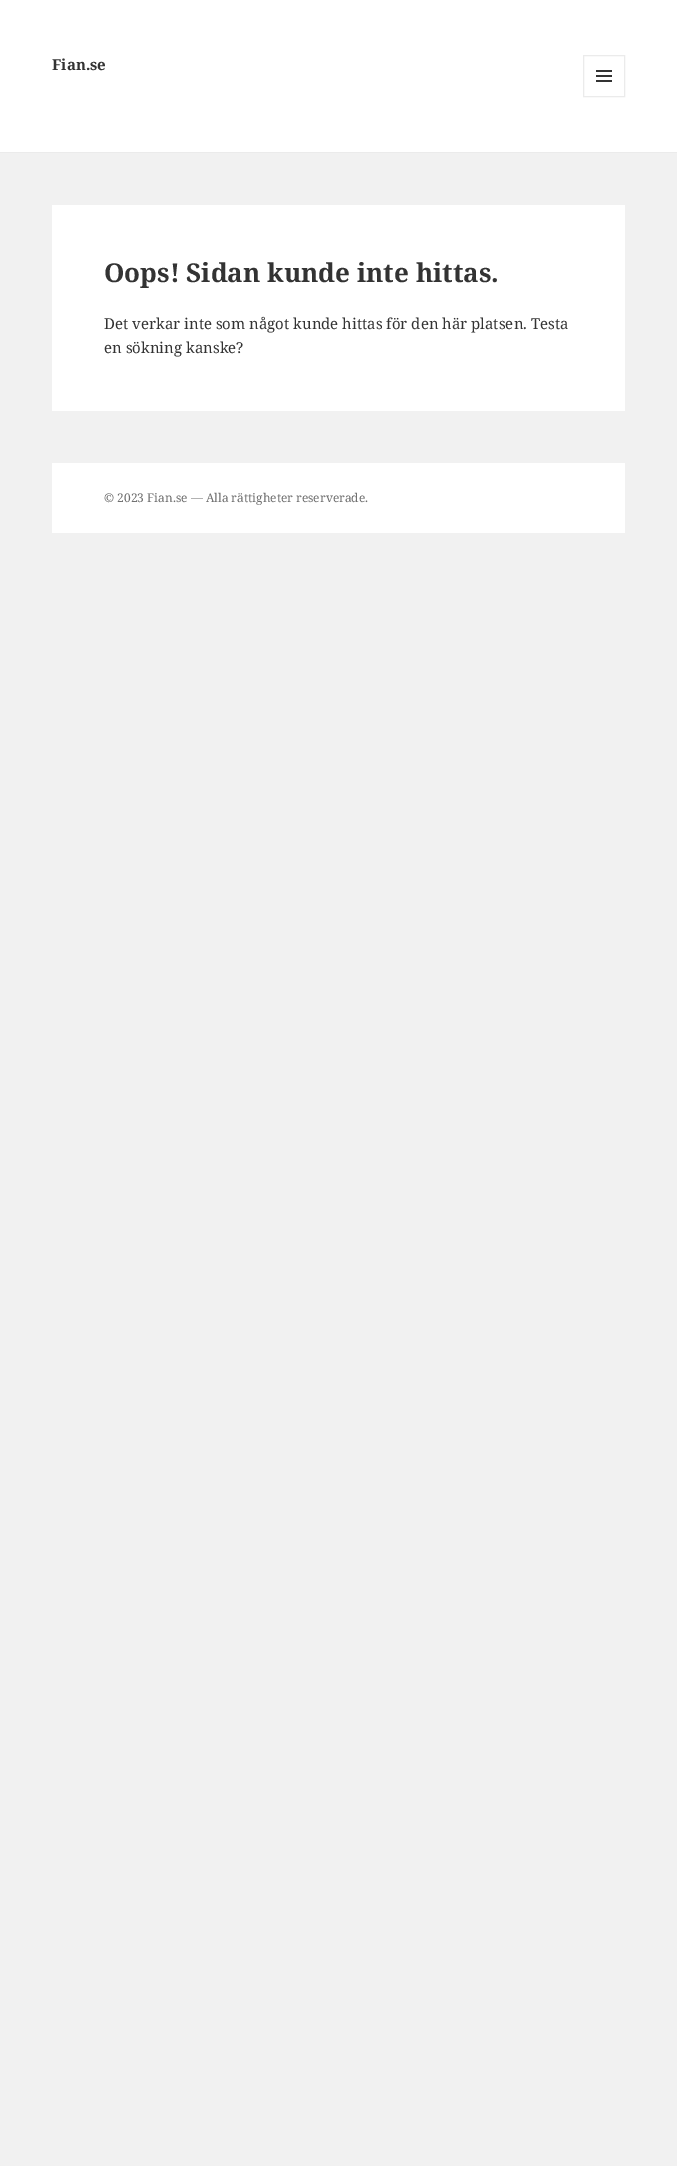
%!PS
<< /PageSize [677 2166] >> setpagedevice
/rgb { 3 { 255 div 3 1 roll } repeat setrgbcolor } def
/font { [ exch dup neg 0 0 3 -1 roll 0 0 ] selectfont } def
/text { moveto show } def
/picture { 5 dict begin { /h /w /y /x /name } { exch def } forall
  gsave x y translate w h scale
  w h 8 [w 0 0 h 0 0] name (r) file false 3 colorimage grestore end } def
0 2166 translate 1 -1 scale
4 setmiterlimit
241 241 241 rgb
0 0 677 2166 rectfill
255 255 255 rgb
0 0 677 152 rectfill
235 235 235 rgb
0 152 677 1 rectfill
583.5 55.5 41 41 rectstroke
(img_01.rgb) 596 70 16 12 picture
255 255 255 rgb
52 205 573 206 rectfill
52 463 573 70 rectfill
/NotoSerif-Bold 15 font
51 51 51 rgb
(Fian.se) 52 70 text
/NotoSerif-Bold 26 font
(Oops! Sidan kunde inte hittas.) 104 282 text
/NotoSerif-Regular 15 font
(Det verkar inte som något kunde hittas för den här platsen. Testa) 104 329 text
(en sökning kanske?) 104 353 text
/NotoSerif-Regular 12 font
112 112 112 rgb
(© 2023 Fian.se — Alla rättigheter reserverade.) 104 502 text
showpage
